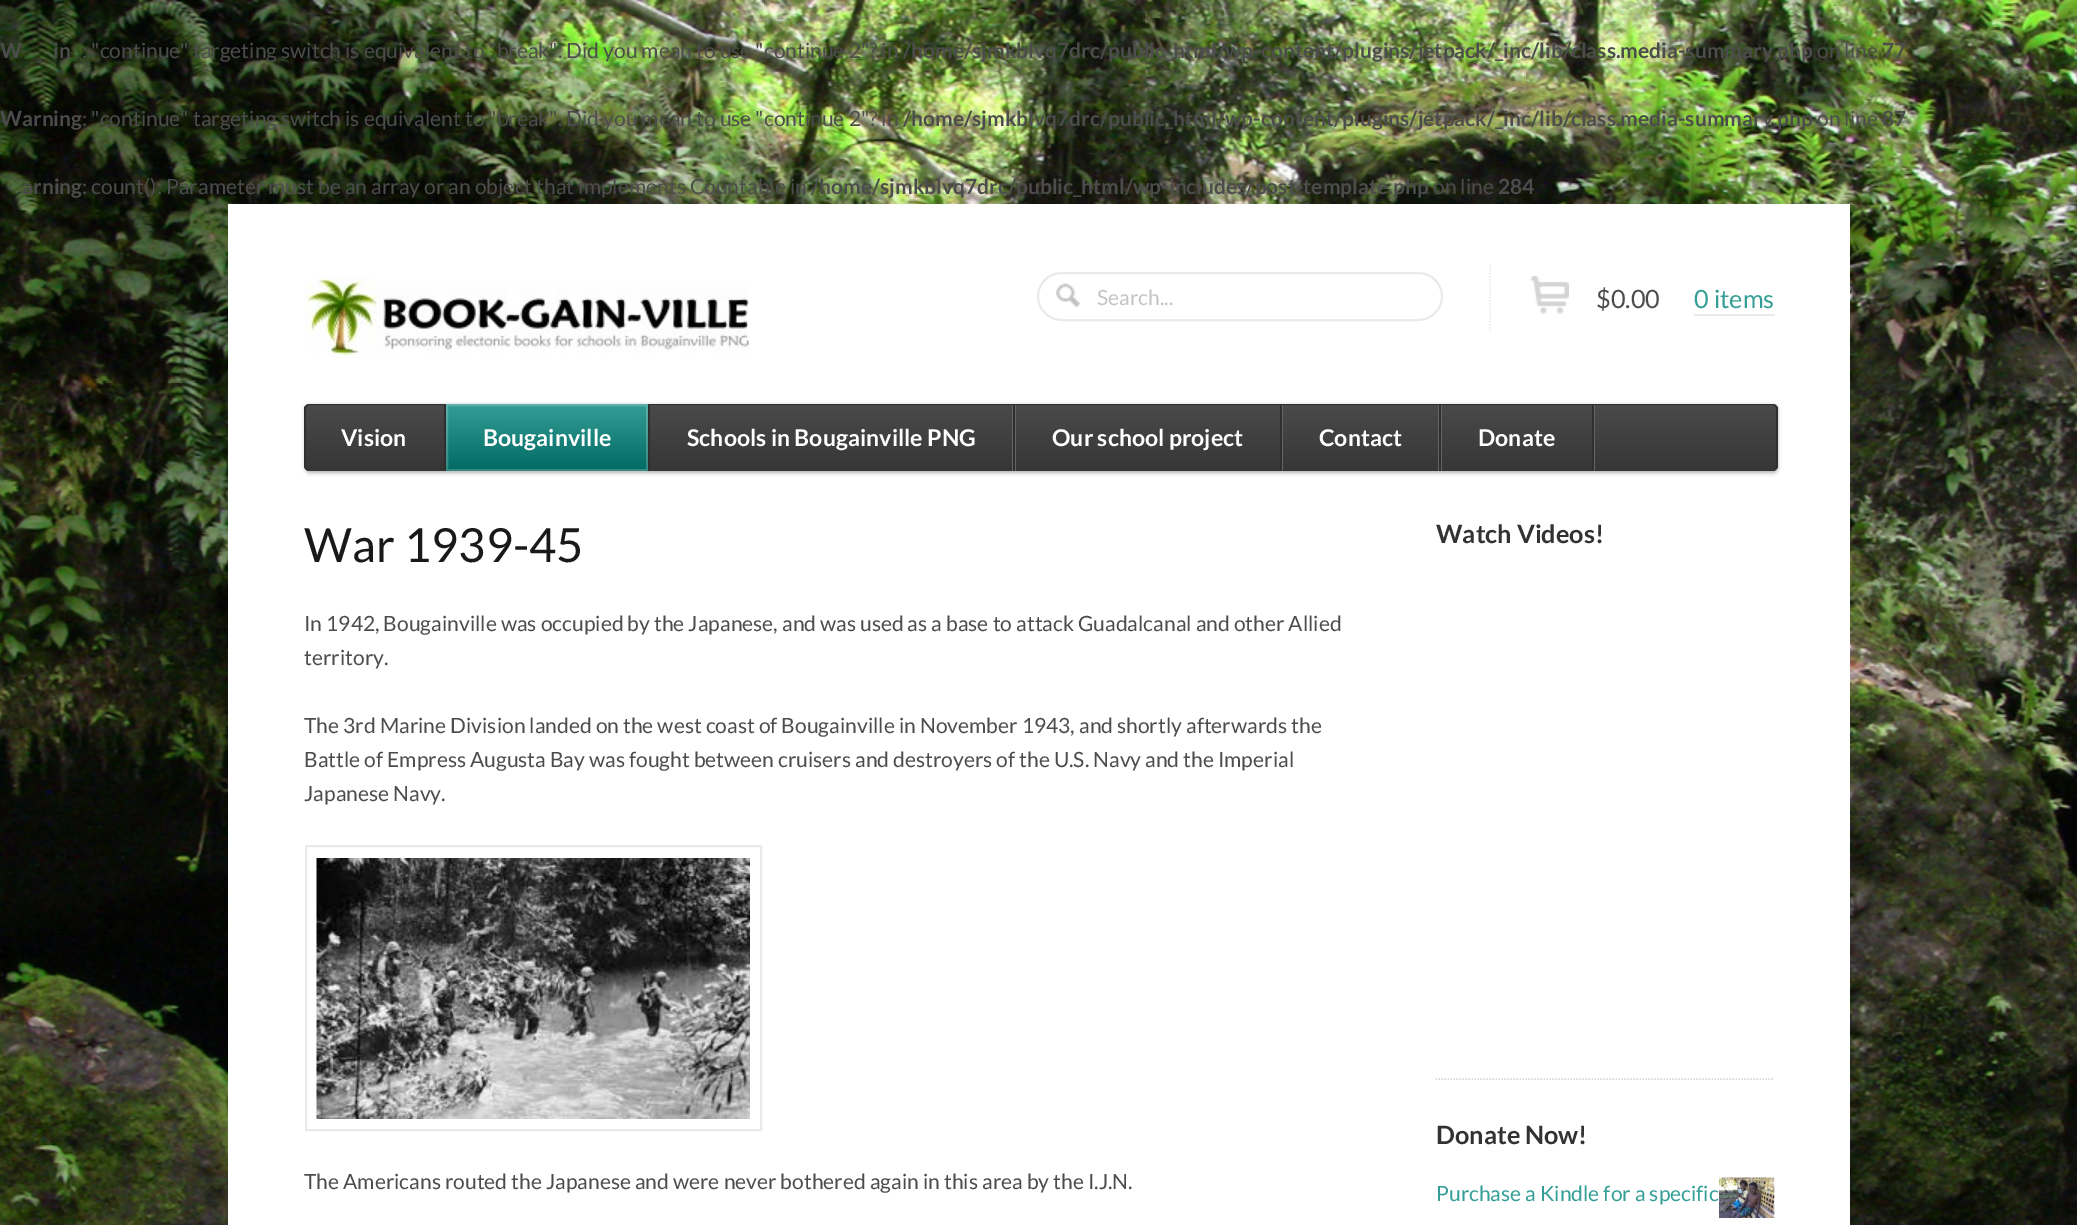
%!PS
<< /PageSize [2077 1225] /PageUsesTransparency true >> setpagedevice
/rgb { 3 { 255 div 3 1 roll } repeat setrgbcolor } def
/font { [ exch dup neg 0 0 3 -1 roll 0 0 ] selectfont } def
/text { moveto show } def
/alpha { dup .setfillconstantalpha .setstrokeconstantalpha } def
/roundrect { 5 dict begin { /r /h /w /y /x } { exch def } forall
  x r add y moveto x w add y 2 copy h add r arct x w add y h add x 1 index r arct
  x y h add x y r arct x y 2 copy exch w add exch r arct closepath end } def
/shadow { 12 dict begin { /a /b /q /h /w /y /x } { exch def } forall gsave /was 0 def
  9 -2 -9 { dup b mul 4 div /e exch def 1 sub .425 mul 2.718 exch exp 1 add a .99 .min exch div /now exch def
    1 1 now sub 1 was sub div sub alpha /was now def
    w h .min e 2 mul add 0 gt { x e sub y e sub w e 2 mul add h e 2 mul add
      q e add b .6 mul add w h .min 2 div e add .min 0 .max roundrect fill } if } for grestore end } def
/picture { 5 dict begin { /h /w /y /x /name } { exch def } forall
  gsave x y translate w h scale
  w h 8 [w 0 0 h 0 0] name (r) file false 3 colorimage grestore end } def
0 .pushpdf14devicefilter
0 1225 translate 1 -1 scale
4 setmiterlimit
255 255 255 rgb
0 0 2077 1225 rectfill
(img_01.rgb) 0 0 2077 1225 picture
228 204 1622 1021 rectfill
(img_02.rgb) 304 277 445 79 picture
234 234 234 rgb
2 setlinewidth
1038 273 404 47 23.5 roundrect stroke
(img_03.rgb) 1056 283 24 25 picture
1.5 setlinewidth
[1.5 1.5] 0 setdash
1490 264 moveto 0 67.5 rlineto stroke
(img_04.rgb) 1530 276 39 38 picture
1694 314 81 2 rectfill
0 0 0 rgb
305 405 1473 68 5 2 0.3 shadow
gsave 309 405 moveto 1464 0 rlineto 1 0 3 2 3 3 rcurveto 0 58 rlineto 0 3 -2 5 -3 5 rcurveto -1464 0 rlineto -1 0 -3 -2 -3 -5 rcurveto 0 -58 rlineto 0 -1 2 -3 3 -3 rcurveto closepath clip newpath
<< /ShadingType 2 /ColorSpace /DeviceRGB /Coords [1041 405 1041 471] /Extend [true true] /Function << /FunctionType 2 /Domain [0 1] /C0 [0.29 0.29 0.29] /C1 [0.212 0.212 0.212] /N 1 >> >> shfill grestore
47 47 47 rgb
309 404 moveto 1464 0 rlineto 2 0 5 2 5 4 rcurveto 0 58 rlineto 0 3 -3 5 -5 5 rcurveto -1464 0 rlineto -2 0 -5 -2 -5 -5 rcurveto 0 -58 rlineto 0 -2 3 -4 5 -4 rcurveto closepath 309 405 moveto 1464 0 rlineto 1 0 3 2 3 3 rcurveto 0 58 rlineto 0 3 -2 5 -3 5 rcurveto -1464 0 rlineto -1 0 -3 -2 -3 -5 rcurveto 0 -58 rlineto 0 -1 2 -3 3 -3 rcurveto closepath eofill
gsave 446 404 moveto 202 0 rlineto 0 67 rlineto -202 0 rlineto closepath clip newpath
<< /ShadingType 2 /ColorSpace /DeviceRGB /Coords [547 404 547 471] /Extend [true true] /Function << /FunctionType 2 /Domain [0 1] /C0 [0.204 0.62 0.588] /C1 [0.004 0.42 0.388] /N 1 >> >> shfill grestore
0.2 alpha
255 255 255 rgb
2 setlinewidth
[] 0 setdash
447 405 200 65 rectstroke
1 alpha
47 47 47 rgb
444 404 2 67 rectfill
100 100 100 rgb
1012 405 4 66 rectfill
47 47 47 rgb
648 405 2 66 rectfill
100 100 100 rgb
1282 405 1 66 rectfill
47 47 47 rgb
1013 405 2 66 rectfill
100 100 100 rgb
1438 405 4 66 rectfill
47 47 47 rgb
1280 405 2 66 rectfill
100 100 100 rgb
1594 405 1 66 rectfill
47 47 47 rgb
1592 405 2 66 rectfill
1439 405 2 66 rectfill
234 234 234 rgb
306 846 455 284 rectstroke
(img_05.rgb) 316 858 434 261 picture
214 214 214 rgb
1.5 setlinewidth
[1.5 1.5] 0 setdash
1435.5 1079 moveto 339 0 rlineto stroke
(img_06.rgb) 1719 1177 56 41 picture
/Lato-Bold 21 font
76 76 76 rgb
(W) 0 58 text
(in) 53 58 text
/Lato-Regular 21 font
(: "continue" targeting switch is equivalent to "break". Did you mean to use "continue 2"? in) 82 58 text
/Lato-Bold 21 font
(/home/sjmkblvq7drc/public_html/wp-content/plugins/jetpack/_inc/lib/class.media-summary.php) 903 58 text
/Lato-Regular 21 font
(on line) 1817 58 text
/Lato-Bold 21 font
(77) 1882 58 text
(Warning) 0 126 text
/Lato-Regular 21 font
(: "continue" targeting switch is equivalent to "break". Did you mean to use "continue 2"? in) 82 126 text
/Lato-Bold 21 font
(/home/sjmkblvq7drc/public_html/wp-content/plugins/jetpack/_inc/lib/class.media-summary.php) 903 126 text
/Lato-Regular 21 font
(on line) 1817 126 text
/Lato-Bold 21 font
(87) 1882 126 text
(arning) 22 194 text
/Lato-Regular 21 font
(: count\(\): Parameter must be an array or an object that implements Countable in) 82 194 text
/Lato-Bold 21 font
(/home/sjmkblvq7drc/public_html/wp-includes/post-template.php) 811 194 text
/Lato-Regular 21 font
(on line) 1433 194 text
/Lato-Bold 21 font
(284) 1498 194 text
/Lato-Regular 21 font
196 196 196 rgb
(Search...) 1097 305 text
/Lato-Regular 25.25 font
76 76 76 rgb
($0.00) 1596 308 text
52 158 150 rgb
(0 items) 1694 308 text
/Lato-Bold 23.1 font
255 255 255 rgb
(Vision) 341 446 text
(Bougainville) 483 446 text
(Schools in Bougainville PNG) 687 446 text
(Our school project) 1052 446 text
(Contact) 1319 446 text
(Donate) 1478 446 text
/Lato-Regular 47 font
25 25 25 rgb
(War 1939-45) 304 562 text
/Lato-Regular 21 font
76 76 76 rgb
(In 1942, Bougainville was occupied by the Japanese, and was used as a base to attack Guadalcanal and other Allied) 304 631 text
(territory.) 304 665 text
(The 3rd Marine Division landed on the west coast of Bougainville in November 1943, and shortly afterwards the) 304 733 text
(Battle of Empress Augusta Bay was fought between cruisers and destroyers of the U.S. Navy and the Imperial) 304 767 text
(Japanese Navy.) 304 801 text
(The Americans routed the Japanese and were never bothered again in this area by the I.J.N.) 304 1189 text
/Lato-Bold 25.25 font
50 50 50 rgb
(Watch Videos!) 1436 543 text
(Donate Now!) 1436 1144 text
/Lato-Regular 21 font
52 158 150 rgb
(Purchase a Kindle for a specific) 1436 1201 text
.poppdf14devicefilter showpage
